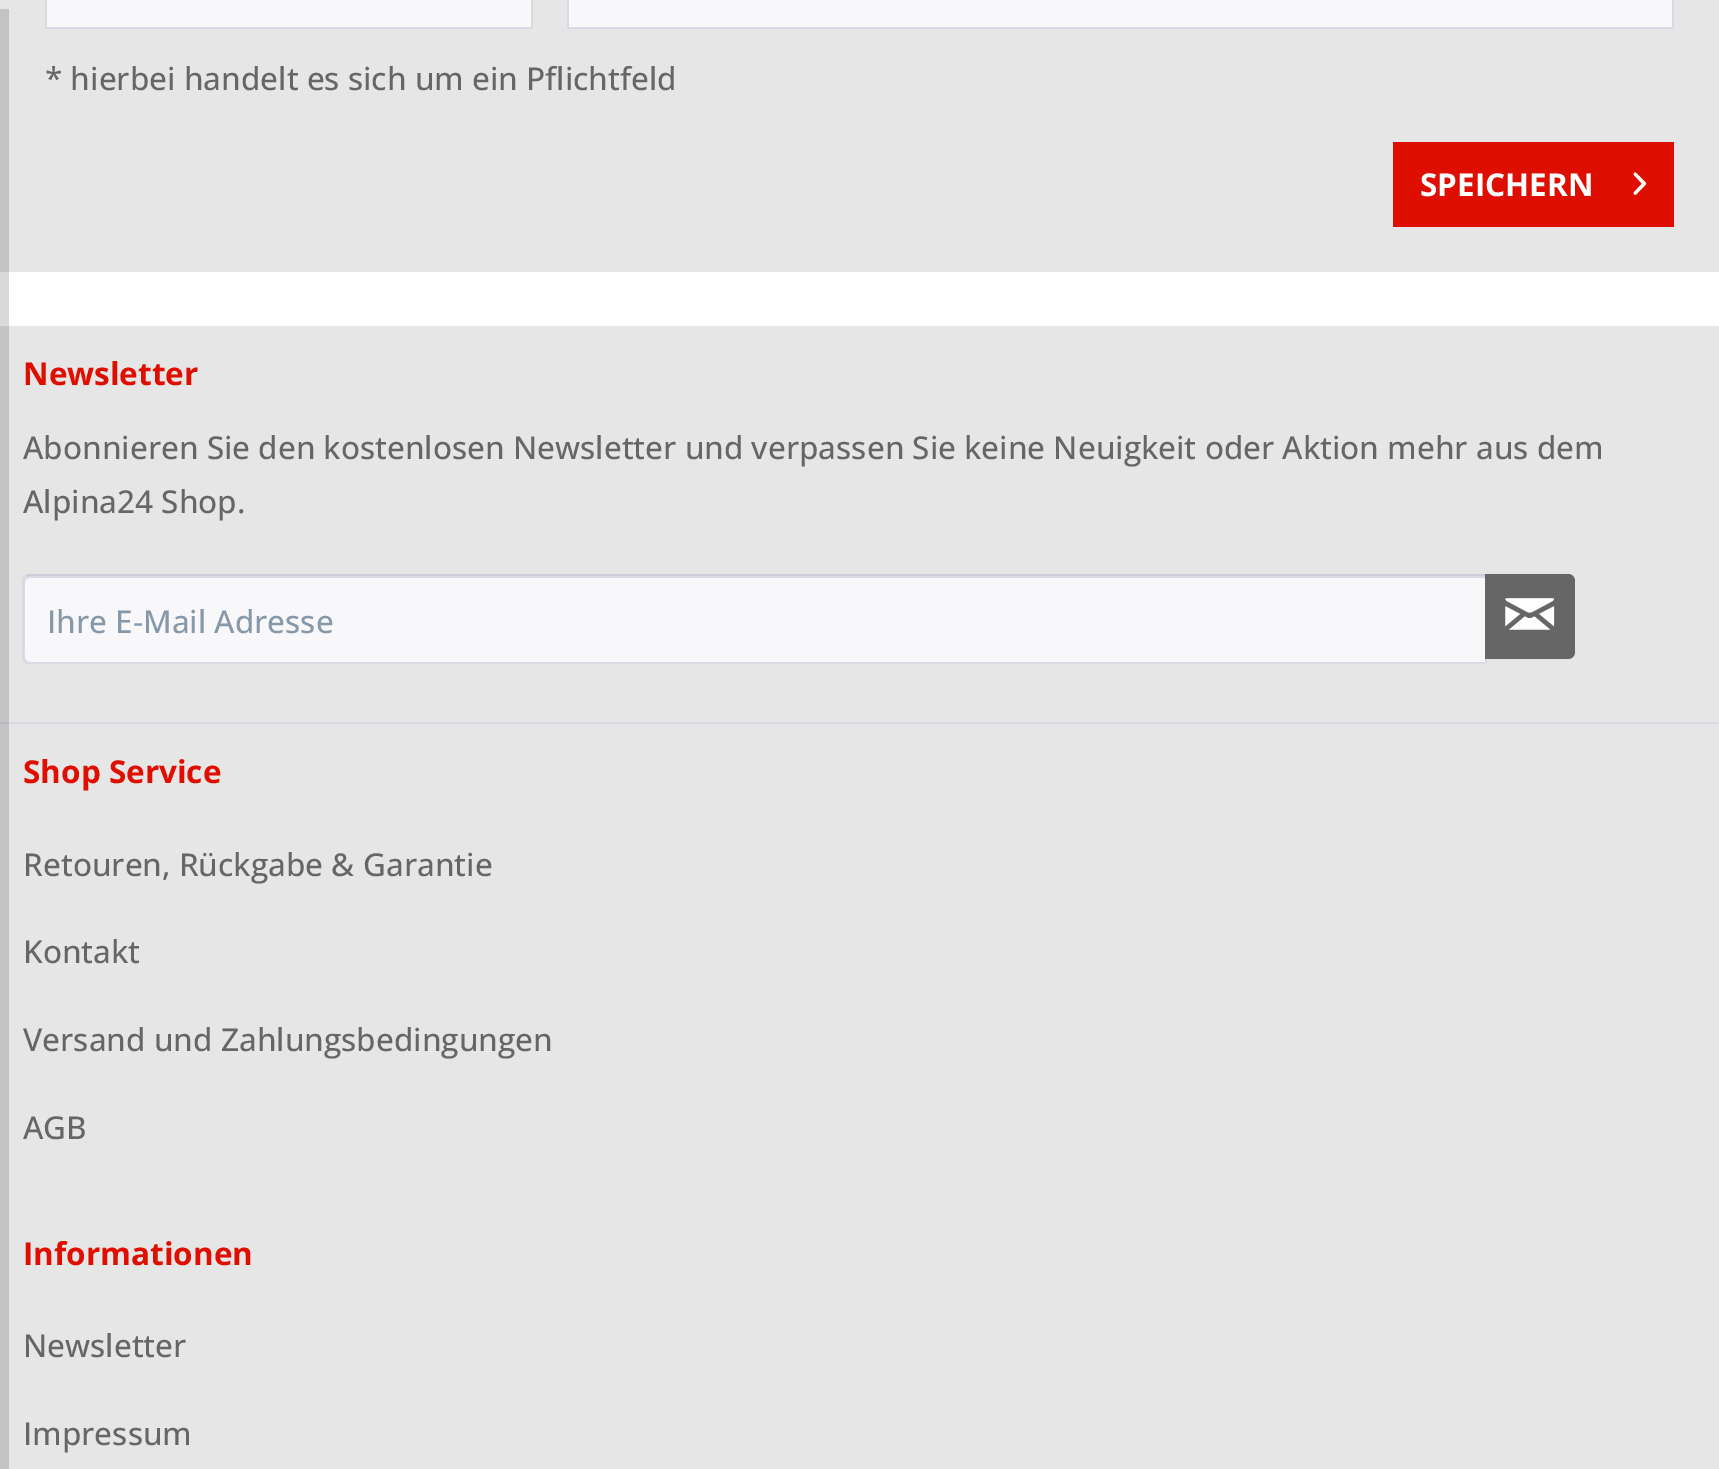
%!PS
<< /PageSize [1719 1469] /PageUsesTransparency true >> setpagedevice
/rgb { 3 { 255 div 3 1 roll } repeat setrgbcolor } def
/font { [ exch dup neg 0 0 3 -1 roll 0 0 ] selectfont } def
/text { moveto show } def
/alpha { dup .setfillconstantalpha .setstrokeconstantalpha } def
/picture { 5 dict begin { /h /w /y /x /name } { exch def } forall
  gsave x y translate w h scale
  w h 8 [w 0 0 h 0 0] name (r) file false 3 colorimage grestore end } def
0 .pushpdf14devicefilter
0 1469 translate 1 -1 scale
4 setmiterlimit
255 255 255 rgb
0 0 1719 1469 rectfill
230 230 230 rgb
0 0 1719 272 rectfill
0 326 1719 1143 rectfill
218 218 229 rgb
0 722 1719 2 rectfill
0.15 alpha
0 0 0 rgb
-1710 1469 moveto 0 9 rlineto 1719 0 rlineto 0 -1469 rlineto -9 0 rlineto 0 1460 rlineto closepath fill
1 alpha
248 248 250 rgb
47 0 484 27 rectfill
218 218 229 rgb
531 0 2 29 rectfill
45 27 488 2 rectfill
45 0 2 29 rectfill
248 248 250 rgb
569 0 1103 27 rectfill
218 218 229 rgb
1672 0 2 29 rectfill
567 27 1107 2 rectfill
567 0 2 29 rectfill
222 14 0 rgb
1393 142 281 85 rectfill
(img_01.rgb) 1633 172 14 23 picture
248 248 250 rgb
30 576 moveto 1455 0 rlineto 0 86 rlineto -1455 0 rlineto -3 0 -5 -2 -5 -5 rcurveto 0 -76 rlineto 0 -3 2 -5 5 -5 rcurveto closepath fill
218 218 229 rgb
29 578 moveto 1456 0 rlineto 0 -2 rlineto -1455 0 rlineto -4 0 -5 4 -5 7 rcurveto 0 -3 2 -5 4 -5 rcurveto closepath fill
203 203 219 rgb
29 574 moveto -1 0 -3 1 -4 2 rcurveto 1 1 rlineto 3 -1 rlineto 1456 0 rlineto 2 -2 rlineto closepath fill
218 218 229 rgb
1487 664 moveto 0 -90 rlineto -2 2 rlineto 0 86 rlineto closepath fill
27 664 moveto -3 -2 rlineto 2 -2 rlineto 1 1 2 2 3 2 rcurveto 1456 0 rlineto 2 2 rlineto closepath fill
22 578 moveto 3 -2 rlineto 1 1 rlineto -1 3 rlineto 0 64 rlineto 0 2 -2 12 1 16 rcurveto -2 2 rlineto -2 -3 rlineto closepath fill
102 102 102 rgb
1485 574 moveto 83 0 rlineto 4 0 7 3 7 7 rcurveto 0 71 rlineto 0 4 -3 7 -7 7 rcurveto -83 0 rlineto closepath fill
(img_02.rgb) 1505 598 50 32 picture
/OpenSans-Medium 31.5 font
(* hierbei handelt es sich um ein Pflichtfeld) 45 90 text
/OpenSans-Bold 31.5 font
255 255 255 rgb
(SPEICHERN) 1420 196 text
222 14 0 rgb
(Newsletter) 23 385 text
/OpenSans-Medium 31.5 font
102 102 102 rgb
(Abonnieren Sie den kostenlosen Newsletter und verpassen Sie keine Neuigkeit oder Aktion mehr aus dem) 23 459 text
(Alpina24 Shop.) 23 513 text
135 152 169 rgb
(Ihre E-Mail Adresse) 47 633 text
/OpenSans-Bold 31.5 font
222 14 0 rgb
(Shop Service) 23 783 text
/OpenSans-Medium 31.5 font
102 102 102 rgb
(Retouren, Rückgabe & Garantie) 23 876 text
(Kontakt) 23 963 text
(Versand und Zahlungsbedingungen) 23 1051 text
(AGB) 23 1139 text
/OpenSans-Bold 31.5 font
222 14 0 rgb
(Informationen) 23 1265 text
/OpenSans-Medium 31.5 font
102 102 102 rgb
(Newsletter) 23 1357 text
(Impressum) 23 1445 text
.poppdf14devicefilter showpage
